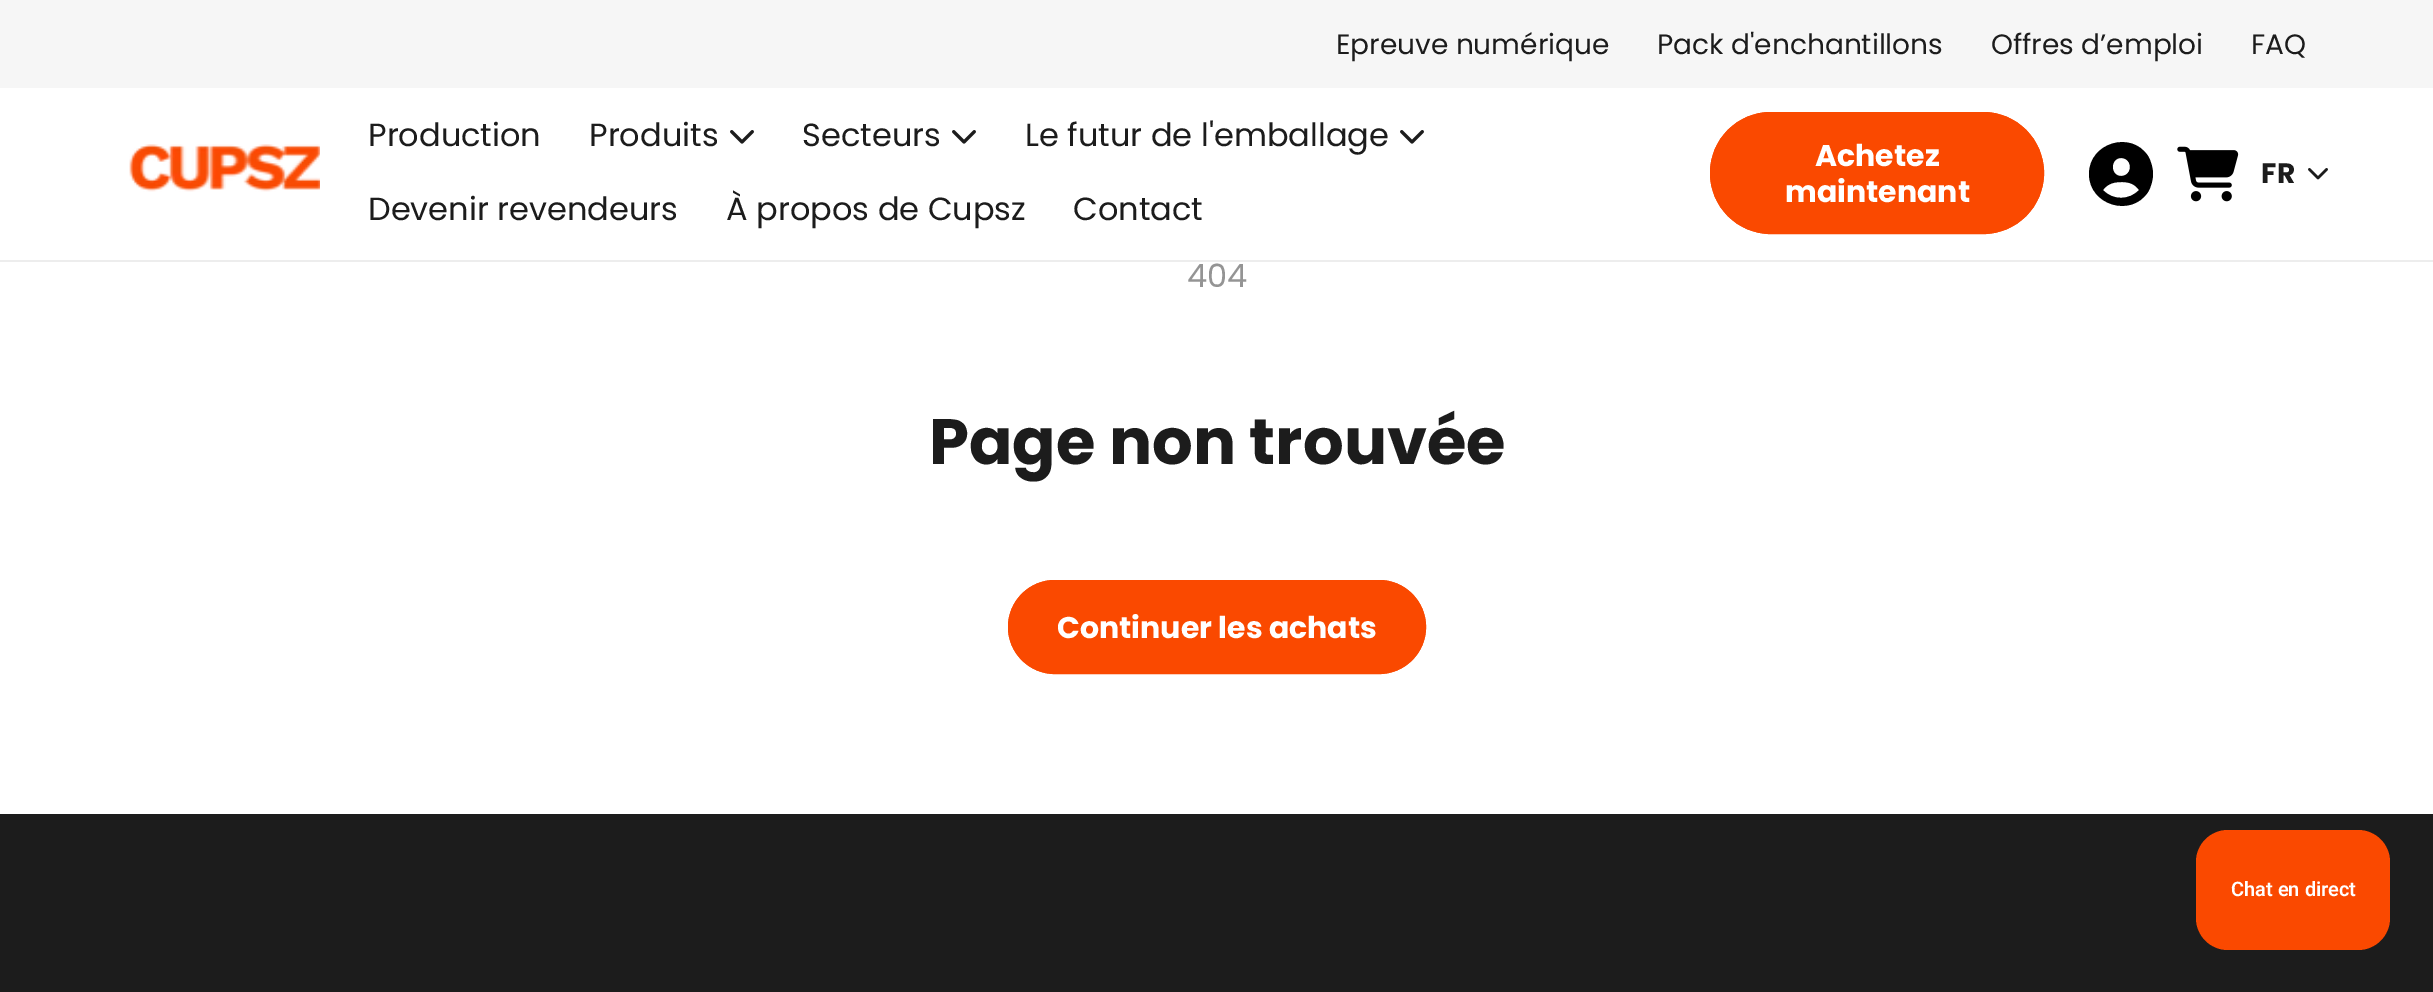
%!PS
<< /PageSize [2433 992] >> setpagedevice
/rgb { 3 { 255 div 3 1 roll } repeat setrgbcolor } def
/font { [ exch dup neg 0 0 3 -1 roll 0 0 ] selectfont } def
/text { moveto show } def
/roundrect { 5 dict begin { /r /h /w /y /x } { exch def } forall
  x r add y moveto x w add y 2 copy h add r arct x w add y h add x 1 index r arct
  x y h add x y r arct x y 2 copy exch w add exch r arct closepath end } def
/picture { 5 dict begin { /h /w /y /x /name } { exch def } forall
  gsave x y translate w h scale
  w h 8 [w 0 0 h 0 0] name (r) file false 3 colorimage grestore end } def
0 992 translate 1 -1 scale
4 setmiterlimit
255 255 255 rgb
0 0 2433 992 rectfill
246 246 246 rgb
0 0 2433 88 rectfill
237 237 237 rgb
0 260 2433 2 rectfill
(img_01.rgb) 129 144 191 48 picture
(img_02.rgb) 730 130 24 14 picture
(img_02.rgb) 952 130 24 14 picture
(img_02.rgb) 1400 130 24 14 picture
250 73 0 rgb
1710 112 334 122 61 roundrect fill
2 setlinewidth
1711 113 332 120 60 roundrect stroke
0 0 0 rgb
2139 190 moveto -4 -6 -10 -8 -17 -8 rcurveto -7 0 -14 1 -19 8 rcurveto 10 11 27 10 36 0 rcurveto closepath 2089 174 moveto 0 -31 42 -44 59 -18 rcurveto 3 5 5 12 5 18 rcurveto 0 6 -2 13 -5 18 rcurveto -17 26 -59 13 -59 -18 rcurveto closepath 2121 176 moveto 12 0 12 -18 0 -18 rcurveto -11 0 -11 18 0 18 rcurveto closepath fill
(img_03.rgb) 2177 146 62 56 picture
(img_04.rgb) 2308 168 20 12 picture
250 73 0 rgb
1008 580 418 94 47 roundrect fill
1009 581 416 92 46 roundrect stroke
28 28 28 rgb
0 814 2433 178 rectfill
250 73 0 rgb
2196 830 194 120 32 roundrect fill
/Poppins-Regular 28 font
28 28 28 rgb
(Epreuve numérique) 1336 54 text
(Pack d'enchantillons) 1657 54 text
(Offres d’emploi) 1991 54 text
(FAQ) 2251 54 text
/Poppins-Regular 32 font
(Production) 368 146 text
(Produits) 589 146 text
(Secteurs) 802 146 text
(Le futur de l'emballage) 1025 146 text
(Devenir revendeurs) 368 220 text
(À propos de Cupsz) 726 220 text
(Contact) 1073 220 text
/Poppins-Bold 30 font
255 255 255 rgb
(Achetez) 1815 166 text
(maintenant) 1785 202 text
/Poppins-Bold 28 font
28 28 28 rgb
2261 183 moveto 1 0 (FR) ashow
/Poppins-Regular 32 font
148 148 148 rgb
(404) 1187 287 text
/Poppins-Bold 64 font
28 28 28 rgb
(Page non trouvée) 929 464 text
/Poppins-Bold 30 font
255 255 255 rgb
(Continuer les achats) 1057 638 text
/Roboto-SemiBold 20 font
(Chat en direct) 2231 896 text
showpage
